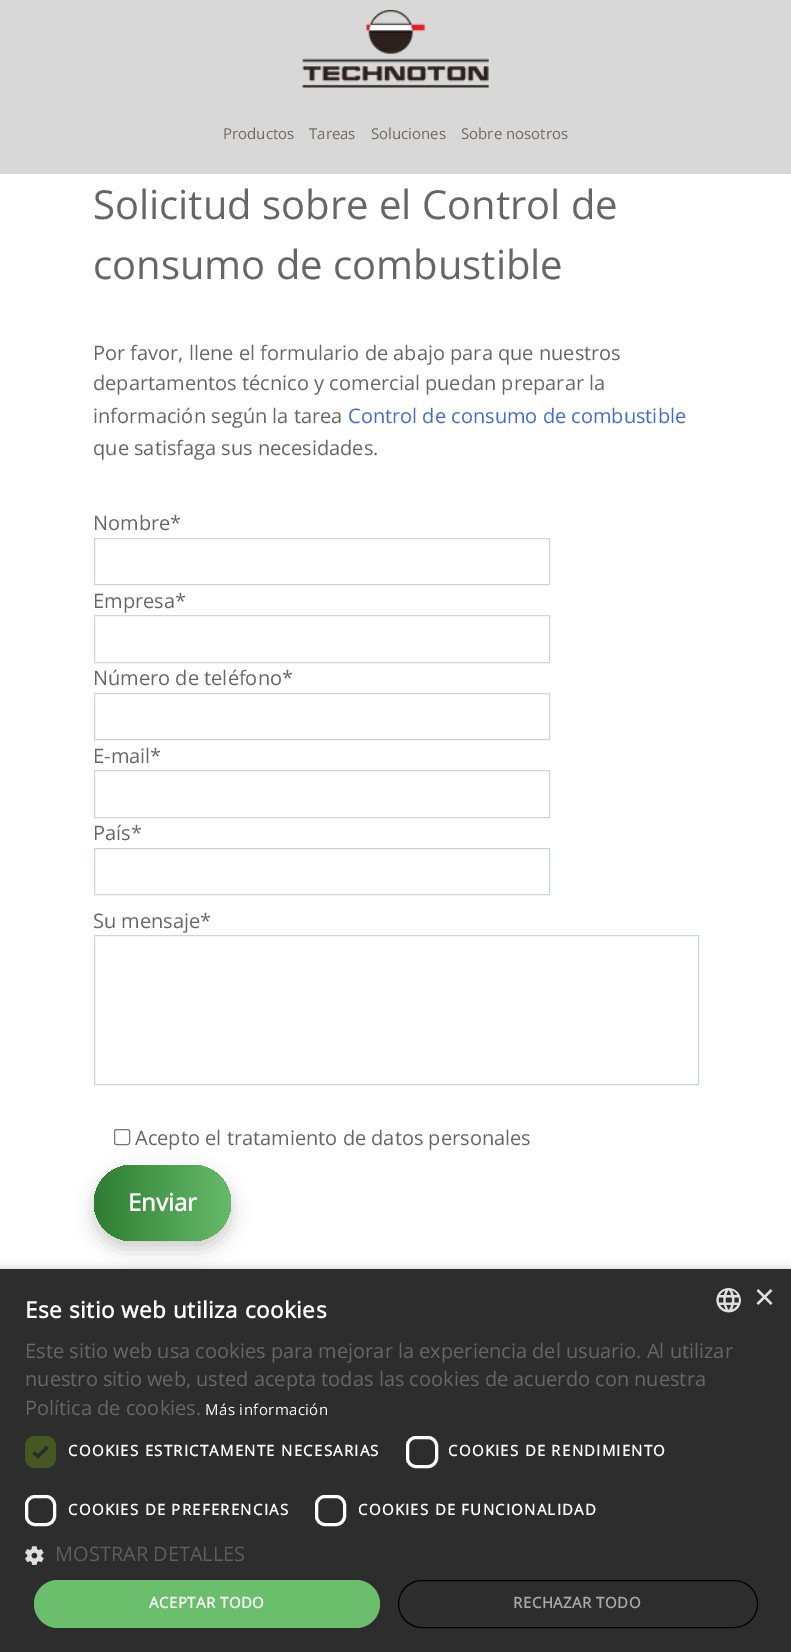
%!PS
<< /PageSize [791 1652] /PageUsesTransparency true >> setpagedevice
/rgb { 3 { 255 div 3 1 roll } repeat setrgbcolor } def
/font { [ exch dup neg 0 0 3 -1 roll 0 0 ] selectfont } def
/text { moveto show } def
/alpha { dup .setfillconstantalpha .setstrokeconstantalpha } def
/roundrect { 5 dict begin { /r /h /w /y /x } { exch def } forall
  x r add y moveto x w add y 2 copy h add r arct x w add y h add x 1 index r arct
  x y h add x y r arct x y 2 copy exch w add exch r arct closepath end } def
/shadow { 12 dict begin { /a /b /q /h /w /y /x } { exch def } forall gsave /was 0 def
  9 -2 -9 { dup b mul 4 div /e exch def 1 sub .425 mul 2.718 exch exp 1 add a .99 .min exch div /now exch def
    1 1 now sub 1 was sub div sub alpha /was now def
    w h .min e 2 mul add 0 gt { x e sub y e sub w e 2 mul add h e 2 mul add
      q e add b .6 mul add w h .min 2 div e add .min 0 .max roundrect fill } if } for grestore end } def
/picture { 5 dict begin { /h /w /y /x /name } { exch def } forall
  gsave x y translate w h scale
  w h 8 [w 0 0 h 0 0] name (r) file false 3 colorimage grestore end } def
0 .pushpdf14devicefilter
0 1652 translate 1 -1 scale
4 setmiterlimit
255 255 255 rgb
0 0 791 1652 rectfill
216 216 216 rgb
0 0 791 174 rectfill
(img_01.rgb) 302 10 187 78 picture
206 212 218 rgb
94.5 538.5 455 46 rectstroke
94.5 615.5 455 47 rectstroke
94.5 693.5 455 46 rectstroke
94.5 770.5 455 47 rectstroke
94.5 848.5 455 46 rectstroke
94.5 935.5 604 149 rectstroke
118 118 118 rgb
114.5 1129.5 15 15 2 roundrect stroke
0 0 0 rgb
94 1173 137 76 38 9 0.2 shadow
gsave 94 1165 137 76 38 roundrect clip newpath
<< /ShadingType 2 /ColorSpace /DeviceRGB /Coords [94 1203 231 1203] /Extend [true true] /Function << /FunctionType 2 /Domain [0 1] /C0 [0.18 0.49 0.196] /C1 [0.4 0.733 0.416] /N 1 >> >> shfill grestore
1 1271 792 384 0 5 0.35 shadow
45 45 45 rgb
0 1269 791 383 rectfill
(img_02.rgb) 716 1288 25 25 picture
70 87 33 rgb
25 1436 31 32 10 roundrect fill
45 45 45 rgb
3.3 setlinewidth
33.5 1452.5 moveto 4.5 4 rlineto 9.5 -9.5 rlineto stroke
255 255 255 rgb
3 setlinewidth
407.5 1437.5 29 29 8.5 roundrect stroke
26.5 1496.5 28 28 8.5 roundrect stroke
316.5 1496.5 28 28 8.5 roundrect stroke
(img_03.rgb) 25 1546 19 19 picture
107 190 107 rgb
34 1580 346 48 24 roundrect fill
0 0 0 rgb
1 setlinewidth
398.5 1580.5 359 47 23.5 roundrect stroke
/OpenSans-Regular 15 font
110 106 102 rgb
(Productos) 223 139 text
(Tareas) 309 139 text
(Soluciones) 371 139 text
(Sobre nosotros) 461 139 text
/OpenSans-Regular 40 font
102 102 102 rgb
(Solicitud sobre el Control de) 93 219 text
(consumo de combustible) 93 279 text
/OpenSans-Regular 20 font
(Por favor, llene el formulario de abajo para que nuestros) 93 360 text
(departamentos técnico y comercial puedan preparar la) 93 390 text
(información según la tarea) 93 423 text
66 108 203 rgb
(Control de consumo de combustible) 348 423 text
102 102 102 rgb
(que satisfaga sus necesidades.) 93 455 text
(Nombre*) 93 530 text
(Empresa*) 93 608 text
(Número de teléfono*) 93 685 text
(E-mail*) 93 763 text
(País*) 93 840 text
(Su mensaje*) 93 928 text
(Acepto el tratamiento de datos personales) 135 1145 text
/OpenSans-Bold 24 font
255 255 255 rgb
(Enviar) 128 1211 text
/LiberationSans-Regular 36 font
224 224 224 rgb
(×) 754 1309 text
/OpenSans-Bold 22.5 font
255 255 255 rgb
25 1318 moveto 0.5 0 (Ese sitio web utiliza cookies) ashow
/OpenSans-Regular 20 font
102 102 102 rgb
(Este sitio web usa cookies para mejorar la experiencia del usuario. Al utilizar) 25 1358 text
(nuestro sitio web, usted acepta todas las cookies de acuerdo con nuestra) 25 1386 text
(Política de cookies.) 25 1415 text
/OpenSans-Regular 15 font
255 255 255 rgb
205 1415 moveto 0.4 0 (Más información) ashow
/OpenSans-Bold 15 font
68 1456 moveto 1.25 0 (COOKIES ESTRICTAMENTE NECESARIAS) ashow
448 1456 moveto 1.25 0 (COOKIES DE RENDIMIENTO) ashow
68 1515 moveto 1.25 0 (COOKIES DE PREFERENCIAS) ashow
358 1515 moveto 1.25 0 (COOKIES DE FUNCIONALIDAD) ashow
/OpenSans-Regular 20 font
93 93 93 rgb
(MOSTRAR DETALLES) 55 1561 text
/OpenSans-Bold 15 font
255 255 255 rgb
149 1608 moveto 0.5 0 (ACEPTAR TODO) ashow
169 168 168 rgb
513 1608 moveto 0.5 0 (RECHAZAR TODO) ashow
.poppdf14devicefilter showpage
